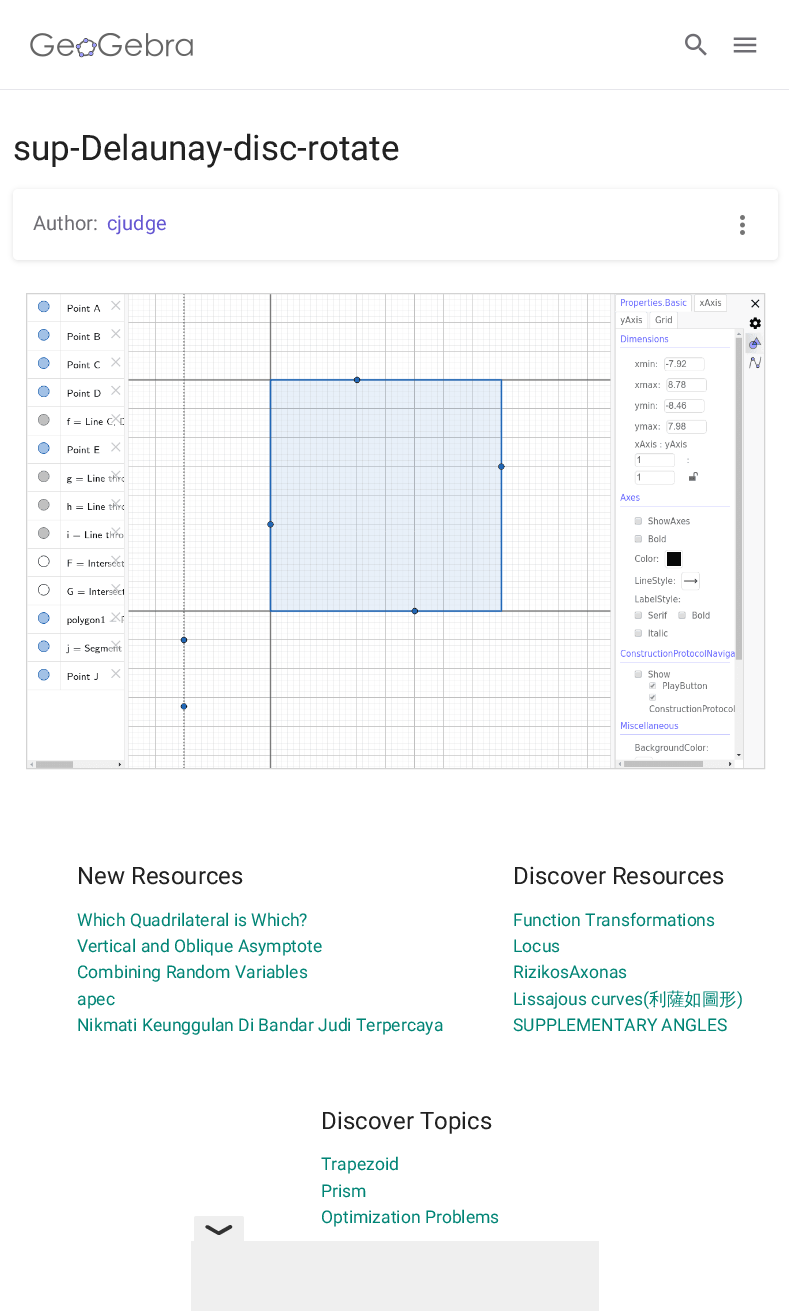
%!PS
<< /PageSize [789 1311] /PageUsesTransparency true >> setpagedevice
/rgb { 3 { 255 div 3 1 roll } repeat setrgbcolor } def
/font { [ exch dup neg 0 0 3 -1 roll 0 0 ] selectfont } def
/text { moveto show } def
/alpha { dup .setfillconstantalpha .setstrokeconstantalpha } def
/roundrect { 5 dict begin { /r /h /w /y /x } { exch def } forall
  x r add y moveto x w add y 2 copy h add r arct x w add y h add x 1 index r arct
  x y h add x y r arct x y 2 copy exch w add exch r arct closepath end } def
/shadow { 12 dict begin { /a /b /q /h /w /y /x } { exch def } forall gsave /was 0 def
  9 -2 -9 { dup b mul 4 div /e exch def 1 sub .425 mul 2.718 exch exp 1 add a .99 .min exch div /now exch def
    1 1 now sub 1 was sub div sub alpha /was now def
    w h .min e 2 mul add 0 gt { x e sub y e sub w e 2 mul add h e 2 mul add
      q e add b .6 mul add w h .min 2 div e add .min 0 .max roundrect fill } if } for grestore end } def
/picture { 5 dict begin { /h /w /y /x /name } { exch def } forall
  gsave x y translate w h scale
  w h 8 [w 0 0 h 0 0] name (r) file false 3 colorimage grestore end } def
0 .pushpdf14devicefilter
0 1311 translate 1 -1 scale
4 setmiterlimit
255 255 255 rgb
0 0 789 1311 rectfill
230 230 235 rgb
0 89 789 1 rectfill
(img_01.rgb) 30 33 163 25 picture
(img_02.rgb) 685 33 22 23 picture
(img_03.rgb) 733 37 24 16 picture
28 28 31 rgb
13 190 765 71 5 2.5 0.14 shadow
255 255 255 rgb
13 189 765 71 5 roundrect fill
(img_04.rgb) 740 215 5 20 picture
(img_05.rgb) 27 294 737 474 picture
211 211 211 rgb
26.5 293.5 738 475 rectstroke
239 239 239 rgb
196.5 1216 moveto 45 0 rlineto 1.5 0 2.5 1 2.5 2.5 rcurveto 0 22.5 rlineto -50 0 rlineto 0 -22.5 rlineto 0 -1.5 1 -2.5 2.5 -2.5 rcurveto closepath fill
49 49 49 rgb
208.5 1225.5 moveto 11 6.5 rlineto 1.5 1.5 -0.5 3.5 -2 2.5 rcurveto -11.5 -6.5 rlineto -1.5 -1.5 0.5 -3.5 2.5 -2.5 rcurveto closepath fill
218.5 1231.5 moveto 11.5 -6.5 rlineto 2 0 3 2.5 1 3.5 rcurveto -11.5 6.5 rlineto -2 0 -3 -2.5 -1 -3.5 rcurveto closepath fill
239 239 239 rgb
191 1241 408 70 rectfill
/Roboto-Regular 35 font
33 33 33 rgb
(sup-Delaunay-disc-rotate) 13 160 text
/Roboto-Regular 20 font
110 109 115 rgb
(Author:) 33 230 text
101 87 210 rgb
(cjudge) 107 230 text
/Roboto-Regular 24 font
33 33 33 rgb
(New Resources) 77 884 text
/Roboto-Regular 17.5 font
0 132 117 rgb
(Which Quadrilateral is Which?) 77 926 text
(Vertical and Oblique Asymptote) 77 952 text
(Combining Random Variables) 77 978 text
(apec) 77 1005 text
(Nikmati Keunggulan Di Bandar Judi Terpercaya) 77 1031 text
/Roboto-Regular 24 font
33 33 33 rgb
(Discover Resources) 513 884 text
/Roboto-Regular 17.5 font
0 132 117 rgb
(Function Transformations) 513 926 text
(Locus) 513 952 text
(RizikosAxonas) 513 978 text
(Lissajous curves\() 513 1005 text
/WenQuanYiZenHei-Medium 17.5 font
(利薩如圖形) 649 1005 text
/Roboto-Regular 17.5 font
(\)) 737 1005 text
(SUPPLEMENTARY ANGLES) 513 1031 text
/Roboto-Regular 24 font
33 33 33 rgb
(Discover Topics) 321 1129 text
/Roboto-Regular 17.5 font
0 132 117 rgb
(Trapezoid) 321 1170 text
(Prism) 321 1197 text
(Optimization Problems) 321 1223 text
.poppdf14devicefilter showpage
